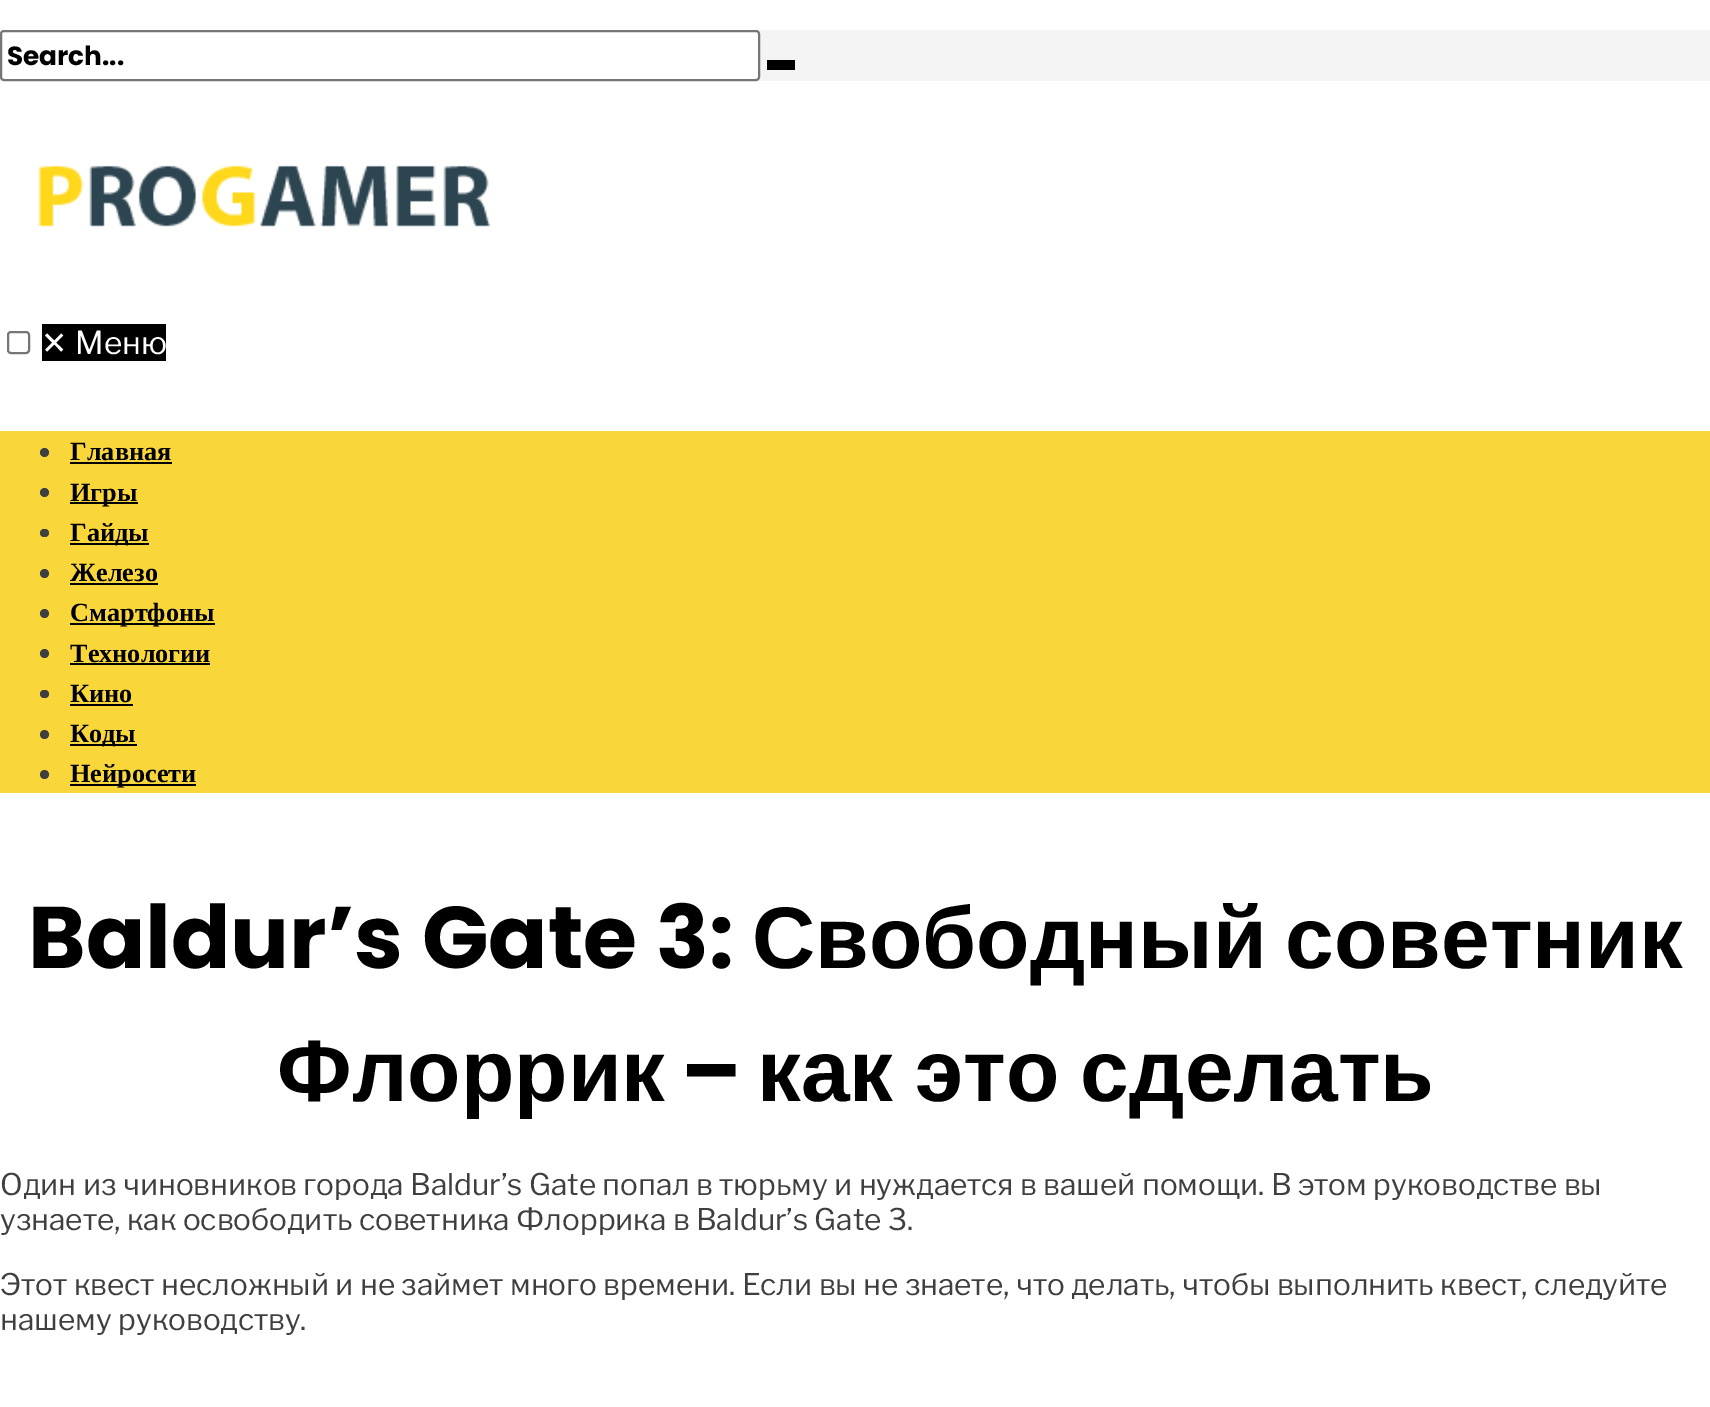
%!PS
<< /PageSize [1710 1407] >> setpagedevice
/rgb { 3 { 255 div 3 1 roll } repeat setrgbcolor } def
/font { [ exch dup neg 0 0 3 -1 roll 0 0 ] selectfont } def
/text { moveto show } def
/circle { newpath 0 360 arc closepath } def
/roundrect { 5 dict begin { /r /h /w /y /x } { exch def } forall
  x r add y moveto x w add y 2 copy h add r arct x w add y h add x 1 index r arct
  x y h add x y r arct x y 2 copy exch w add exch r arct closepath end } def
/picture { 5 dict begin { /h /w /y /x /name } { exch def } forall
  gsave x y translate w h scale
  w h 8 [w 0 0 h 0 0] name (r) file false 3 colorimage grestore end } def
0 1407 translate 1 -1 scale
4 setmiterlimit
255 255 255 rgb
0 0 1710 1407 rectfill
244 244 244 rgb
0 30 1710 51 rectfill
255 255 255 rgb
1 31 758 49 3 roundrect gsave fill grestore
118 118 118 rgb
2 setlinewidth
stroke
0 0 0 rgb
767 60 28 10 rectfill
(img_01.rgb) 38 165 453 62 picture
118 118 118 rgb
8 332 21 21 3 roundrect stroke
0 0 0 rgb
42 324 124 37 rectfill
249 215 58 rgb
0 431 1710 362 rectfill
63 63 63 rgb
44.5 452.5 4.5 circle fill
0 0 0 rgb
70 462 102 2 rectfill
63 63 63 rgb
44.5 492.5 4.5 circle fill
0 0 0 rgb
70 502 68 2 rectfill
63 63 63 rgb
40 529 9 8 4 roundrect fill
0 0 0 rgb
70 543 79 2 rectfill
63 63 63 rgb
44.5 573.5 4.5 circle fill
0 0 0 rgb
70 583 88 2 rectfill
63 63 63 rgb
44.5 613.5 4.5 circle fill
0 0 0 rgb
70 623 145 2 rectfill
63 63 63 rgb
44.5 653.5 4.5 circle fill
0 0 0 rgb
70 663 140 2 rectfill
63 63 63 rgb
40 690 9 8 4 roundrect fill
0 0 0 rgb
70 704 63 2 rectfill
63 63 63 rgb
44.5 734.5 4.5 circle fill
0 0 0 rgb
70 744 67 2 rectfill
63 63 63 rgb
44.5 774.5 4.5 circle fill
0 0 0 rgb
70 784 126 2 rectfill
/Poppins-Bold 26.25 font
(Search...) 7 65 text
/DejaVuSans-Regular 31.5 font
255 255 255 rgb
(✕) 41 354 text
/LibreFranklin-Thin 31.5 font
(Меню) 75 354 text
/LiberationSerif-Bold 26.25 font
0 0 0 rgb
(Главная) 70 460 text
(Игры) 70 501 text
(Гайды) 70 541 text
(Железо) 70 581 text
(Смартфоны) 70 621 text
(Технологии) 70 662 text
(Кино) 70 702 text
(Коды) 70 742 text
(Нейросети) 70 782 text
/Poppins-Bold 87.5 font
(Baldur’s Gate 3:) 28 968 text
/LiberationSans-Bold 87.5 font
(Свободный) 752 968 text
(советник) 1285 968 text
(Флоррик) 277 1101 text
/Poppins-Bold 87.5 font
(–) 681 1101 text
/LiberationSans-Bold 87.5 font
757 1101 moveto -3 0 32 (как это сделать) widthshow
/LibreFranklin-Thin 29.75 font
63 63 63 rgb
(Один из чиновников города Baldur’s Gate попал в тюрьму и нуждается в вашей помощи. В этом руководстве вы) 0 1195 text
(узнаете, как освободить советника Флоррика в Baldur’s Gate 3.) 0 1230 text
(Этот квест несложный и не займет много времени. Если вы не знаете, что делать, чтобы выполнить квест, следуйте) 0 1295 text
(нашему руководству.) 0 1330 text
showpage
